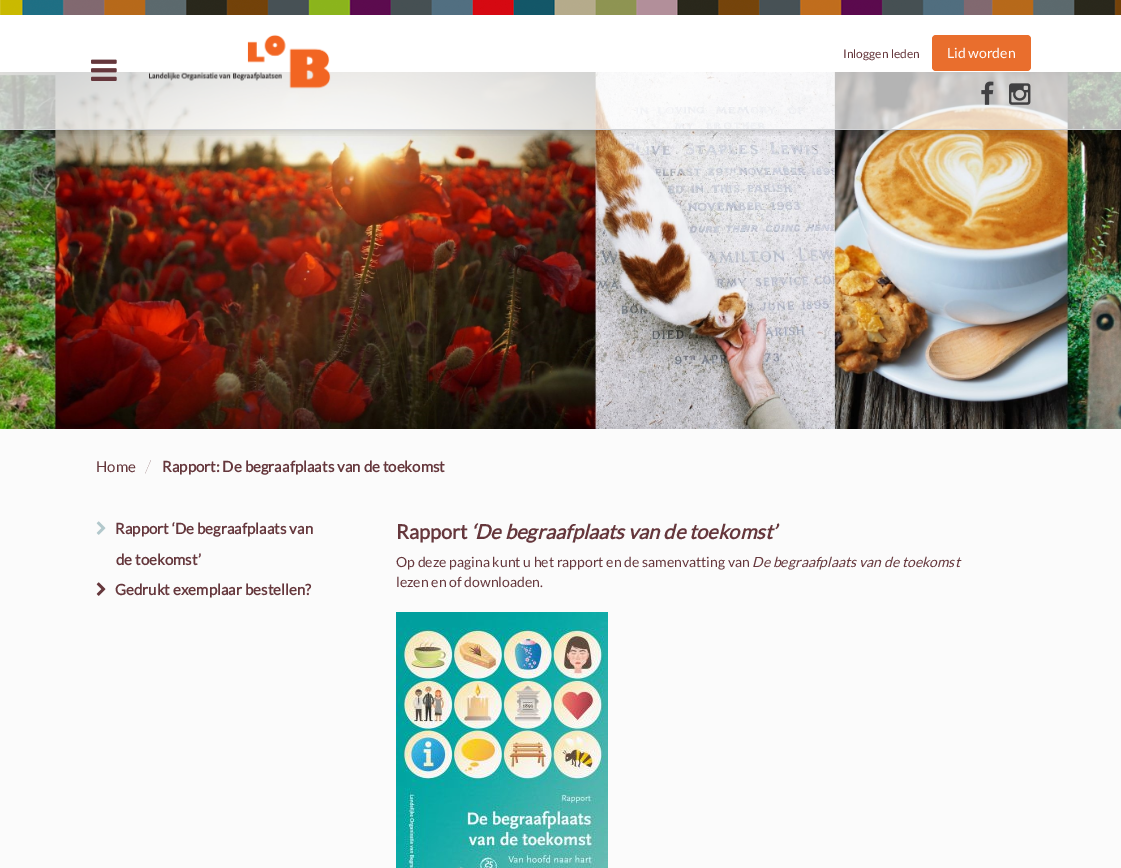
%!PS
<< /PageSize [1121 868] /PageUsesTransparency true >> setpagedevice
/rgb { 3 { 255 div 3 1 roll } repeat setrgbcolor } def
/font { [ exch dup neg 0 0 3 -1 roll 0 0 ] selectfont } def
/text { moveto show } def
/alpha { dup .setfillconstantalpha .setstrokeconstantalpha } def
/roundrect { 5 dict begin { /r /h /w /y /x } { exch def } forall
  x r add y moveto x w add y 2 copy h add r arct x w add y h add x 1 index r arct
  x y h add x y r arct x y 2 copy exch w add exch r arct closepath end } def
/shadow { 12 dict begin { /a /b /q /h /w /y /x } { exch def } forall gsave /was 0 def
  9 -2 -9 { dup b mul 4 div /e exch def 1 sub .425 mul 2.718 exch exp 1 add a .99 .min exch div /now exch def
    1 1 now sub 1 was sub div sub alpha /was now def
    w h .min e 2 mul add 0 gt { x e sub y e sub w e 2 mul add h e 2 mul add
      q e add b .6 mul add w h .min 2 div e add .min 0 .max roundrect fill } if } for grestore end } def
/picture { 5 dict begin { /h /w /y /x /name } { exch def } forall
  gsave x y translate w h scale
  w h 8 [w 0 0 h 0 0] name (r) file false 3 colorimage grestore end } def
0 .pushpdf14devicefilter
0 868 translate 1 -1 scale
4 setmiterlimit
255 255 255 rgb
0 0 1121 868 rectfill
(img_06.rgb) 0 72 1121 357 picture
gsave
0 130 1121 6 rectclip
0 0 0 rgb
0 0 1121 130 0 5 0.2 shadow
grestore
0.7 alpha
0 72 1121 57 rectfill
1 alpha
208 210 214 rgb
0 129 1121 1 rectfill
(img_01.rgb) 0 0 1121 15 picture
(img_02.rgb) 149 34 182 55 picture
233 110 45 rgb
932 35 99 36 4 roundrect fill
(img_03.rgb) 981 81 13 24 picture
(img_04.rgb) 1009 83 22 22 picture
(img_05.rgb) 91 59 26 22 picture
251 251 251 rgb
0 429 1121 439 rectfill
(img_07.rgb) 96 521 10 14 picture
(img_08.rgb) 96 582 10 14 picture
(img_09.rgb) 396 612 212 256 picture
/Lato-Regular 12 font
101 55 60 rgb
(Inloggen leden) 843 58 text
/Lato-Regular 14 font
255 255 255 rgb
(Lid worden) 947 58 text
/Lato-Regular 15 font
101 55 60 rgb
(Home) 96 472 text
/Lato-Thin 18 font
(/) 145 473 text
/Lato-Bold 15 font
(Rapport: De begraafplaats van de toekomst) 162 472 text
(Rapport ‘De begraafplaats van) 115 534 text
(de toekomst’) 116 565 text
(Gedrukt exemplaar bestellen?) 115 595 text
/Lato-Bold 20 font
(Rapport) 396 539 text
/Lato-BoldItalic 20 font
(‘De begraafplaats van de toekomst’) 471 539 text
/Lato-Regular 14 font
(Op deze pagina kunt u het rapport en de samenvatting van) 396 567 text
/Lato-Italic 14 font
(De begraafplaats van de toekomst) 752 567 text
/Lato-Regular 14 font
(lezen en of downloaden.) 396 587 text
.poppdf14devicefilter showpage
